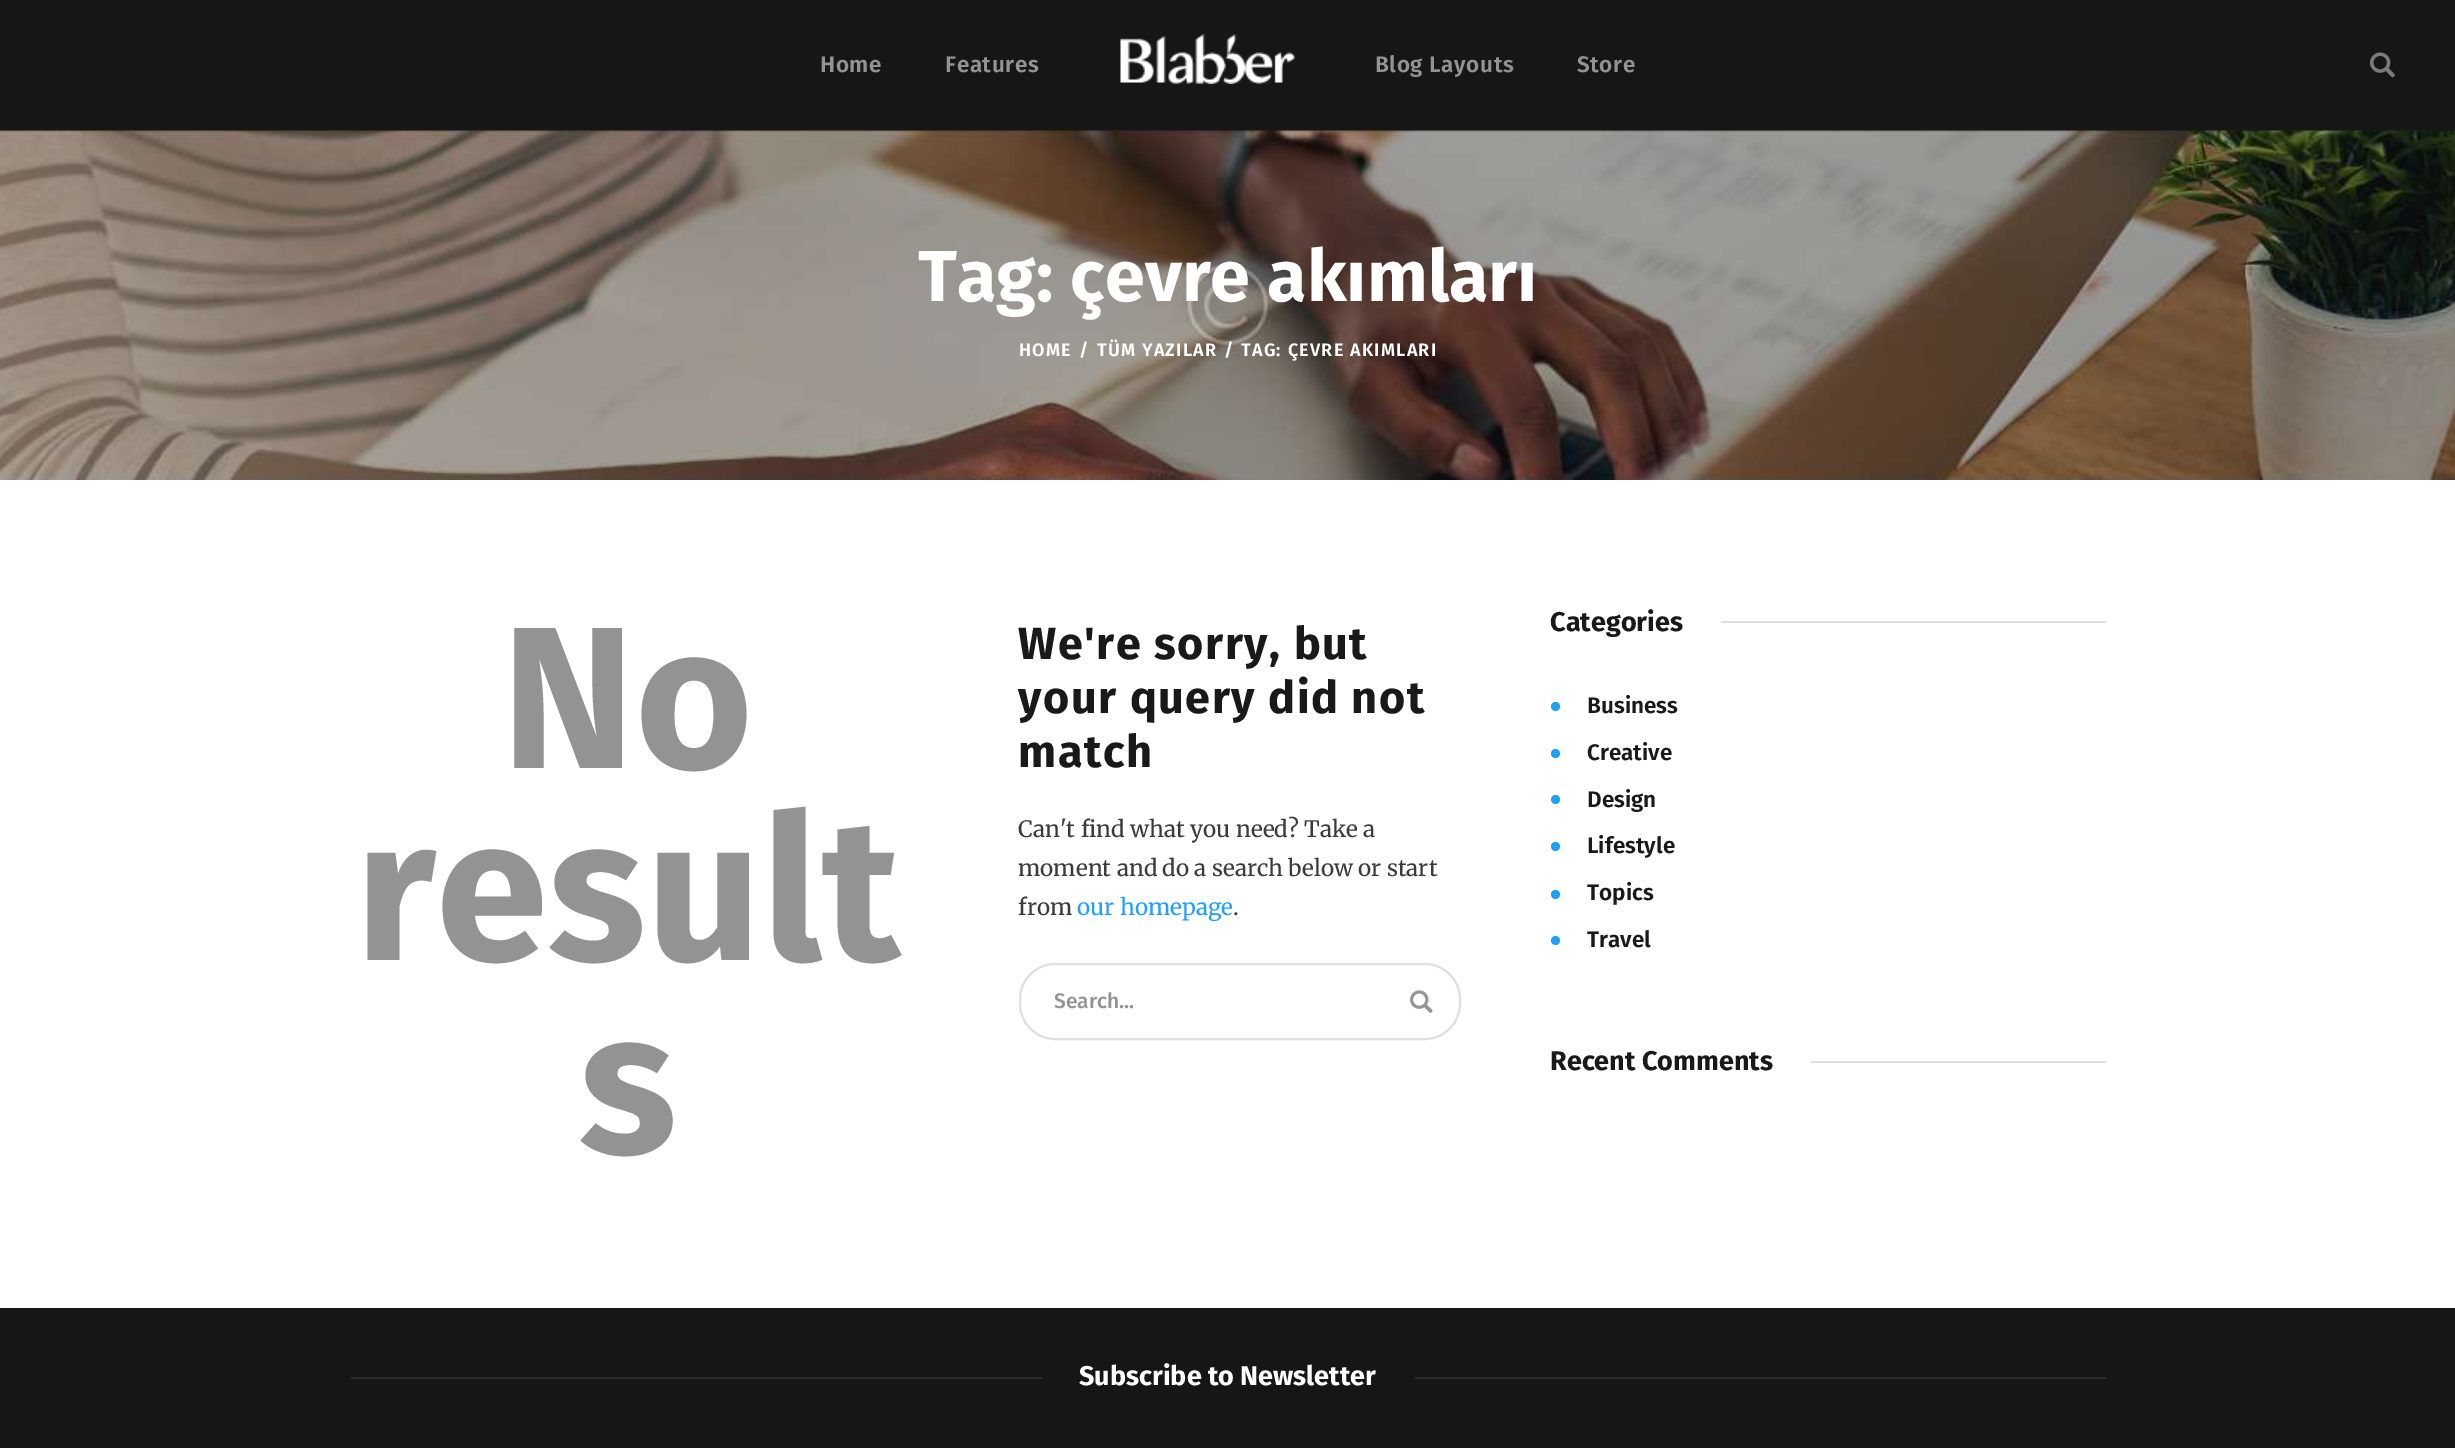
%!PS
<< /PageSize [2455 1448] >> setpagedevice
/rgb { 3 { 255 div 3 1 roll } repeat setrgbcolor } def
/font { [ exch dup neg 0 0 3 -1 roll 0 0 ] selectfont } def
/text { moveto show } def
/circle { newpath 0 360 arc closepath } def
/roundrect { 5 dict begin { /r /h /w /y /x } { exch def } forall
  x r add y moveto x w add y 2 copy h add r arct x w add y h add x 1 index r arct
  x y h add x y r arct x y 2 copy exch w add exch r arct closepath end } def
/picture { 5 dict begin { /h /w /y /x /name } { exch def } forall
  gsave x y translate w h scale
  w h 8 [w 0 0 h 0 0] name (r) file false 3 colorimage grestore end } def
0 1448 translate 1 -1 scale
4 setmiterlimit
255 255 255 rgb
0 0 2455 1448 rectfill
22 22 22 rgb
0 0 2455 131 rectfill
(img_01.rgb) 1120 34 175 50 picture
(img_02.rgb) 2370 52 25 26 picture
(img_03.rgb) 0 130 2455 350 picture
224 224 224 rgb
2 setlinewidth
1020 964 440 75 35 roundrect stroke
(img_04.rgb) 1410 990 23 23 picture
1721 621 385 2 rectfill
33 159 255 rgb
1555.5 706.5 4.5 circle fill
1555.5 753.5 4.5 circle fill
1555.5 799.5 4.5 circle fill
1555.5 846.5 4.5 circle fill
1555.5 894.5 4.5 circle fill
1555.5 940.5 4.5 circle fill
224 224 224 rgb
1811 1061 295 2 rectfill
22 22 22 rgb
0 1308 2455 140 rectfill
43 43 43 rgb
351 1377 692 2 rectfill
1415 1377 691 2 rectfill
/FiraSans-SemiBold 22.5 font
147 147 147 rgb
820 72 moveto 0.6 0 (Home) ashow
945 72 moveto 0.6 0 (Features) ashow
1375 72 moveto 0.6 0 (Blog Layouts) ashow
1577 72 moveto 0.6 0 (Store) ashow
/FiraSans-Bold 72 font
255 255 255 rgb
(Tag: çevre akımları) 918 301 text
/FiraSans-SemiBold 18 font
1019 356 moveto 1.25 0 (HOME) ashow
1079 356 moveto 1.25 0 (/) ashow
1097 356 moveto 1.25 0 (TÜM YAZILAR) ashow
1224 356 moveto 1.25 0 (/) ashow
1241 356 moveto 1.25 0 (TAG: ÇEVRE AKIMLARI) ashow
/FiraSans-Bold 202.5 font
147 147 147 rgb
(No) 501 768 text
(result) 355 960 text
(s) 579 1153 text
/FiraSans-Bold 45 font
25 25 25 rgb
1018 659 moveto 1.5 0 (We're sorry, but) ashow
1018 713 moveto 1.5 0 (your query did not) ashow
1018 767 moveto 1.5 0 (match) ashow
/Merriweather-Regular 22.5 font
59 59 59 rgb
(Can't find what you need? Take a) 1018 837 text
(moment and do a search below or start) 1018 876 text
(from) 1018 915 text
33 159 255 rgb
(our homepage) 1077 915 text
59 59 59 rgb
(.) 1233 915 text
gsave
1055 989 331 25 rectclip
/FiraSans-Medium 21 font
147 147 147 rgb
(Search...) 1054 1008 text
grestore
/FiraSans-Bold 27 font
25 25 25 rgb
(Categories) 1550 631 text
/FiraSans-SemiBold 22.5 font
(Business) 1587 713 text
(Creative) 1587 760 text
(Design) 1587 807 text
(Lifestyle) 1587 853 text
(Topics) 1587 900 text
(Travel) 1587 947 text
/FiraSans-Bold 27 font
(Recent Comments) 1550 1070 text
255 255 255 rgb
(Subscribe to Newsletter) 1079 1385 text
showpage
